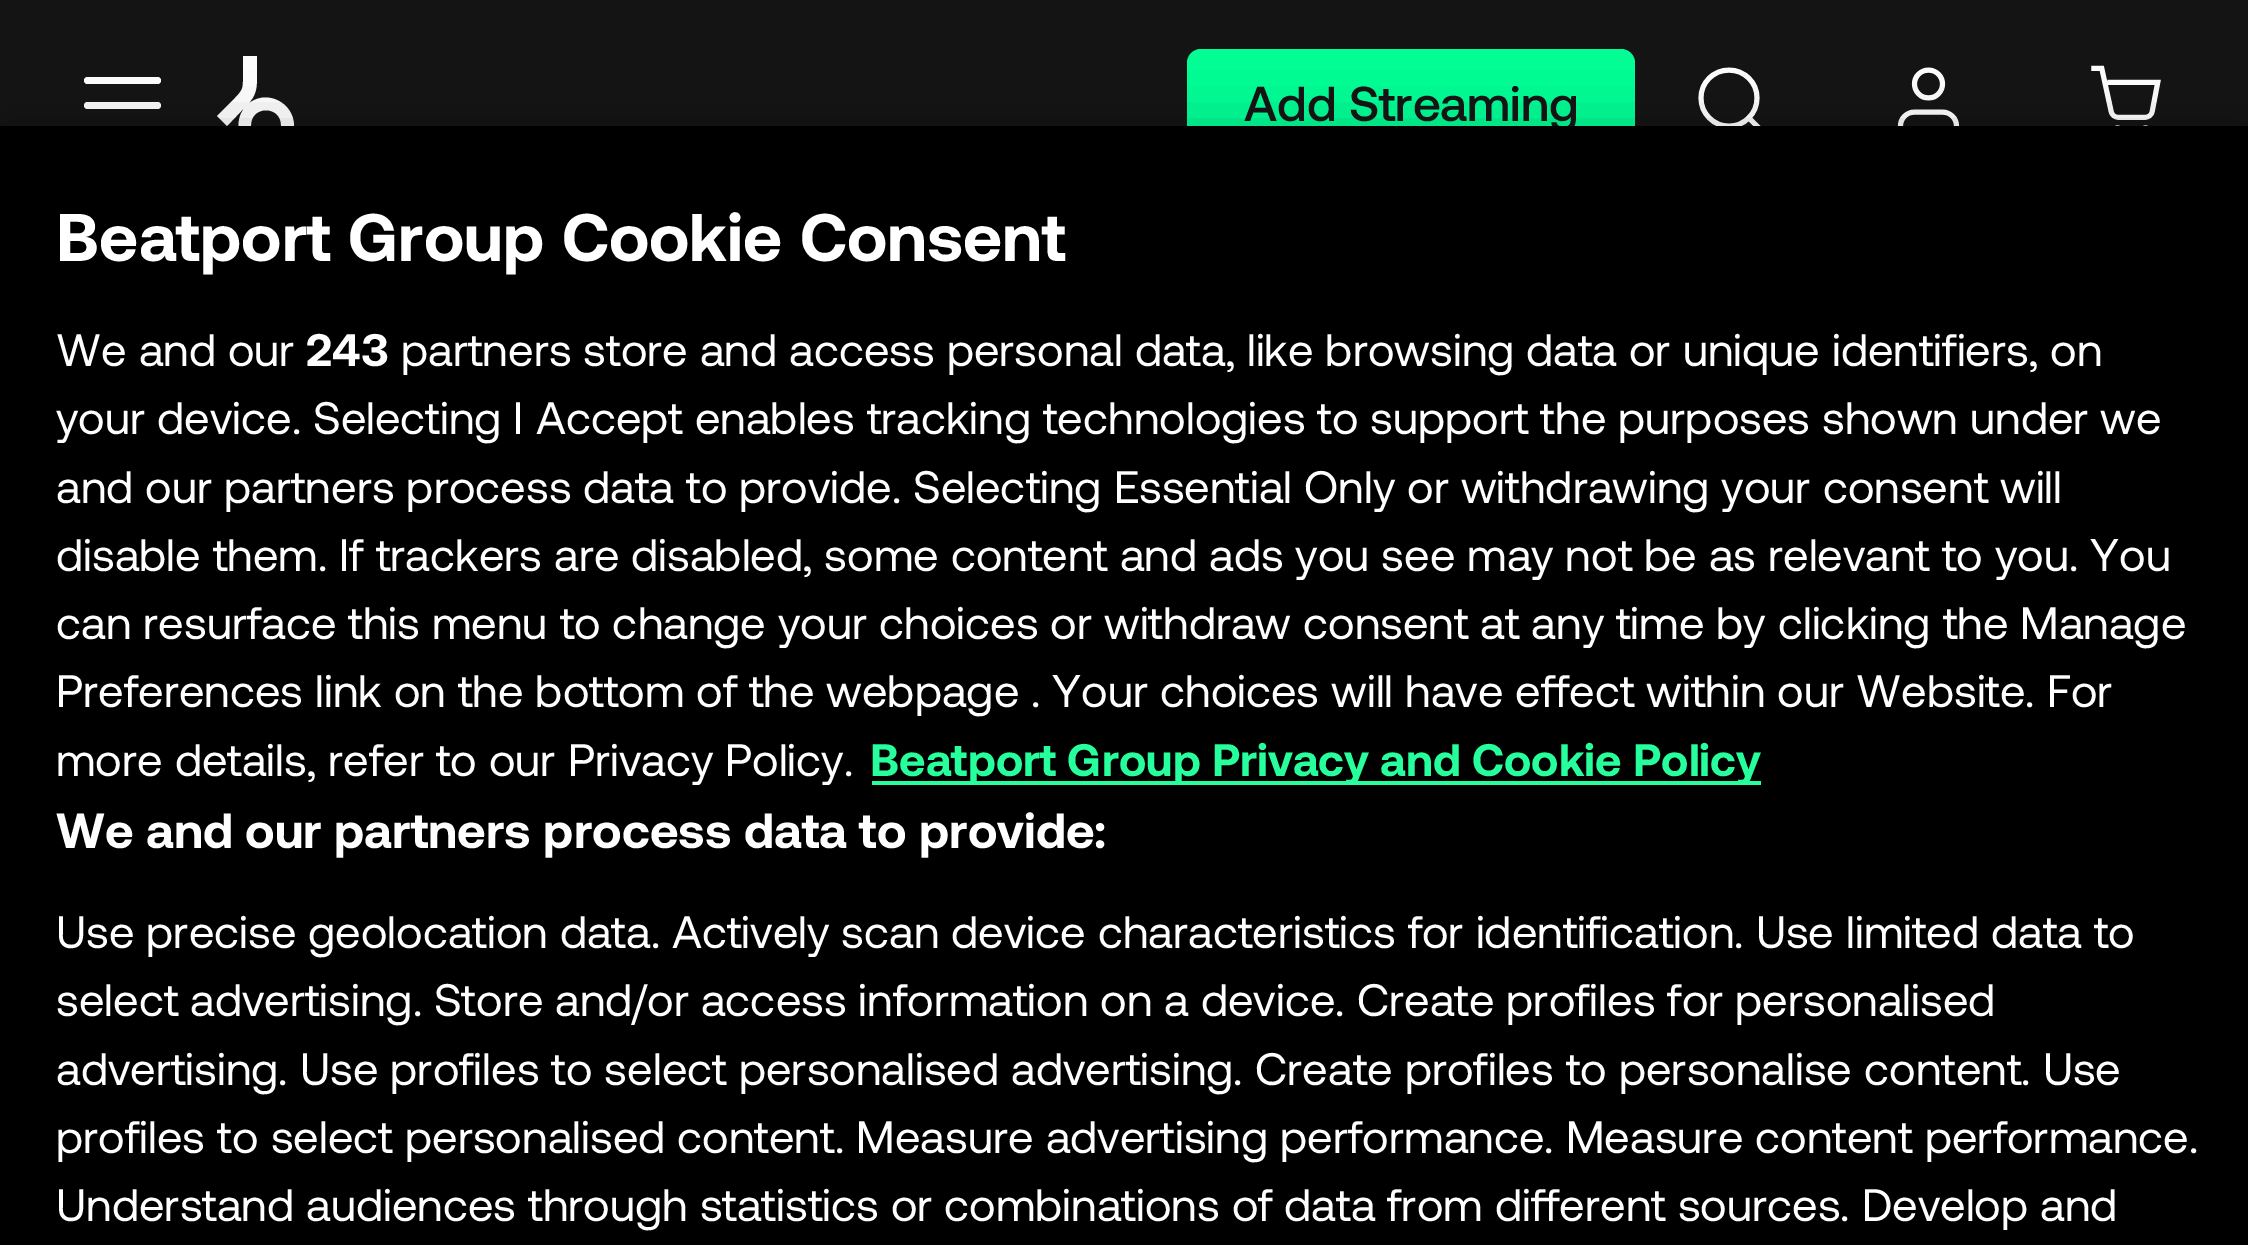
%!PS
<< /PageSize [2248 1245] /PageUsesTransparency true >> setpagedevice
/rgb { 3 { 255 div 3 1 roll } repeat setrgbcolor } def
/font { [ exch dup neg 0 0 3 -1 roll 0 0 ] selectfont } def
/text { moveto show } def
/alpha { dup .setfillconstantalpha .setstrokeconstantalpha } def
/roundrect { 5 dict begin { /r /h /w /y /x } { exch def } forall
  x r add y moveto x w add y 2 copy h add r arct x w add y h add x 1 index r arct
  x y h add x y r arct x y 2 copy exch w add exch r arct closepath end } def
/shadow { 12 dict begin { /a /b /q /h /w /y /x } { exch def } forall gsave /was 0 def
  9 -2 -9 { dup b mul 4 div /e exch def 1 sub .425 mul 2.718 exch exp 1 add a .99 .min exch div /now exch def
    1 1 now sub 1 was sub div sub alpha /was now def
    w h .min e 2 mul add 0 gt { x e sub y e sub w e 2 mul add h e 2 mul add
      q e add b .6 mul add w h .min 2 div e add .min 0 .max roundrect fill } if } for grestore end } def
/picture { 5 dict begin { /h /w /y /x /name } { exch def } forall
  gsave x y translate w h scale
  w h 8 [w 0 0 h 0 0] name (r) file false 3 colorimage grestore end } def
0 .pushpdf14devicefilter
0 1245 translate 1 -1 scale
4 setmiterlimit
20 20 20 rgb
0 0 2248 1245 rectfill
255 255 255 rgb
84 102 77 7 3.5 roundrect fill
84 77 77 7 3.5 roundrect fill
294 126 moveto 0 7 -3 14 -8 20 rcurveto -4 4 -9 7 -15 8 rcurveto -26 4 -43 -28 -25 -48 rcurveto -19 20 rlineto -10 -10 rlineto 18 -18 rlineto 9 -9 8 -11 8 -24 rcurveto 0 -18 rlineto 14 0 rlineto 0 18 rlineto 0 13 0 21 -10 31 rcurveto 18 -17 47 -3 47 21 rcurveto closepath 281 126 moveto 1 -21 -31 -21 -30 0 rcurveto 0 20 30 20 30 0 rcurveto closepath fill
1 255 149 rgb
1187 49 448 116 14 roundrect fill
(img_01.rgb) 1698 67 63 59 picture
(img_02.rgb) 1897 67 63 59 picture
(img_03.rgb) 2091 65 70 61 picture
0 0 0 rgb
0 126 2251 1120 0 31.5 0.2 shadow
/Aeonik-Medium 49 font
20 20 20 rgb
(Add Streaming) 1244 121 text
0 0 0 rgb
0 126 2248 1119 rectfill
/Aeonik-Bold 67.25 font
255 255 255 rgb
56 261 moveto 0.5 0 32 (Beatport Group Cookie Consent) widthshow
/Aeonik-Regular 45.55 font
(We and our) 56 366 text
/Aeonik-Bold 45.55 font
(243) 306 366 text
/Aeonik-Regular 45.55 font
(partners store and access personal data, like browsing data or unique identifiers, on) 401 366 text
(your device. Selecting I Accept enables tracking technologies to support the purposes shown under we) 56 434 text
(and our partners process data to provide. Selecting Essential Only or withdrawing your consent will) 56 503 text
(disable them. If trackers are disabled, some content and ads you see may not be as relevant to you. You) 56 571 text
(can resurface this menu to change your choices or withdraw consent at any time by clicking the Manage) 56 639 text
(Preferences link on the bottom of the webpage . Your choices will have effect within our Website. For) 56 707 text
(more details, refer to our Privacy Policy.) 56 776 text
39 255 156 rgb
872 781 889 4 rectfill
/Aeonik-Bold 45.55 font
(Beatport Group Privacy and Cookie Policy) 870 776 text
/Aeonik-Bold 49.25 font
255 255 255 rgb
56 848 moveto 0.25 0 32 (We and our partners process data to provide:) widthshow
/Aeonik-Regular 45.55 font
(Use precise geolocation data. Actively scan device characteristics for identification. Use limited data to) 56 948 text
(select advertising. Store and/or access information on a device. Create profiles for personalised) 56 1016 text
56 1085 moveto 0.1 0 32 (advertising. Use profiles to select personalised advertising. Create profiles to personalise content. Use) widthshow
56 1153 moveto 0.25 0 32 (profiles to select personalised content. Measure advertising performance. Measure content performance.) widthshow
(Understand audiences through statistics or combinations of data from different sources. Develop and) 56 1221 text
.poppdf14devicefilter showpage
